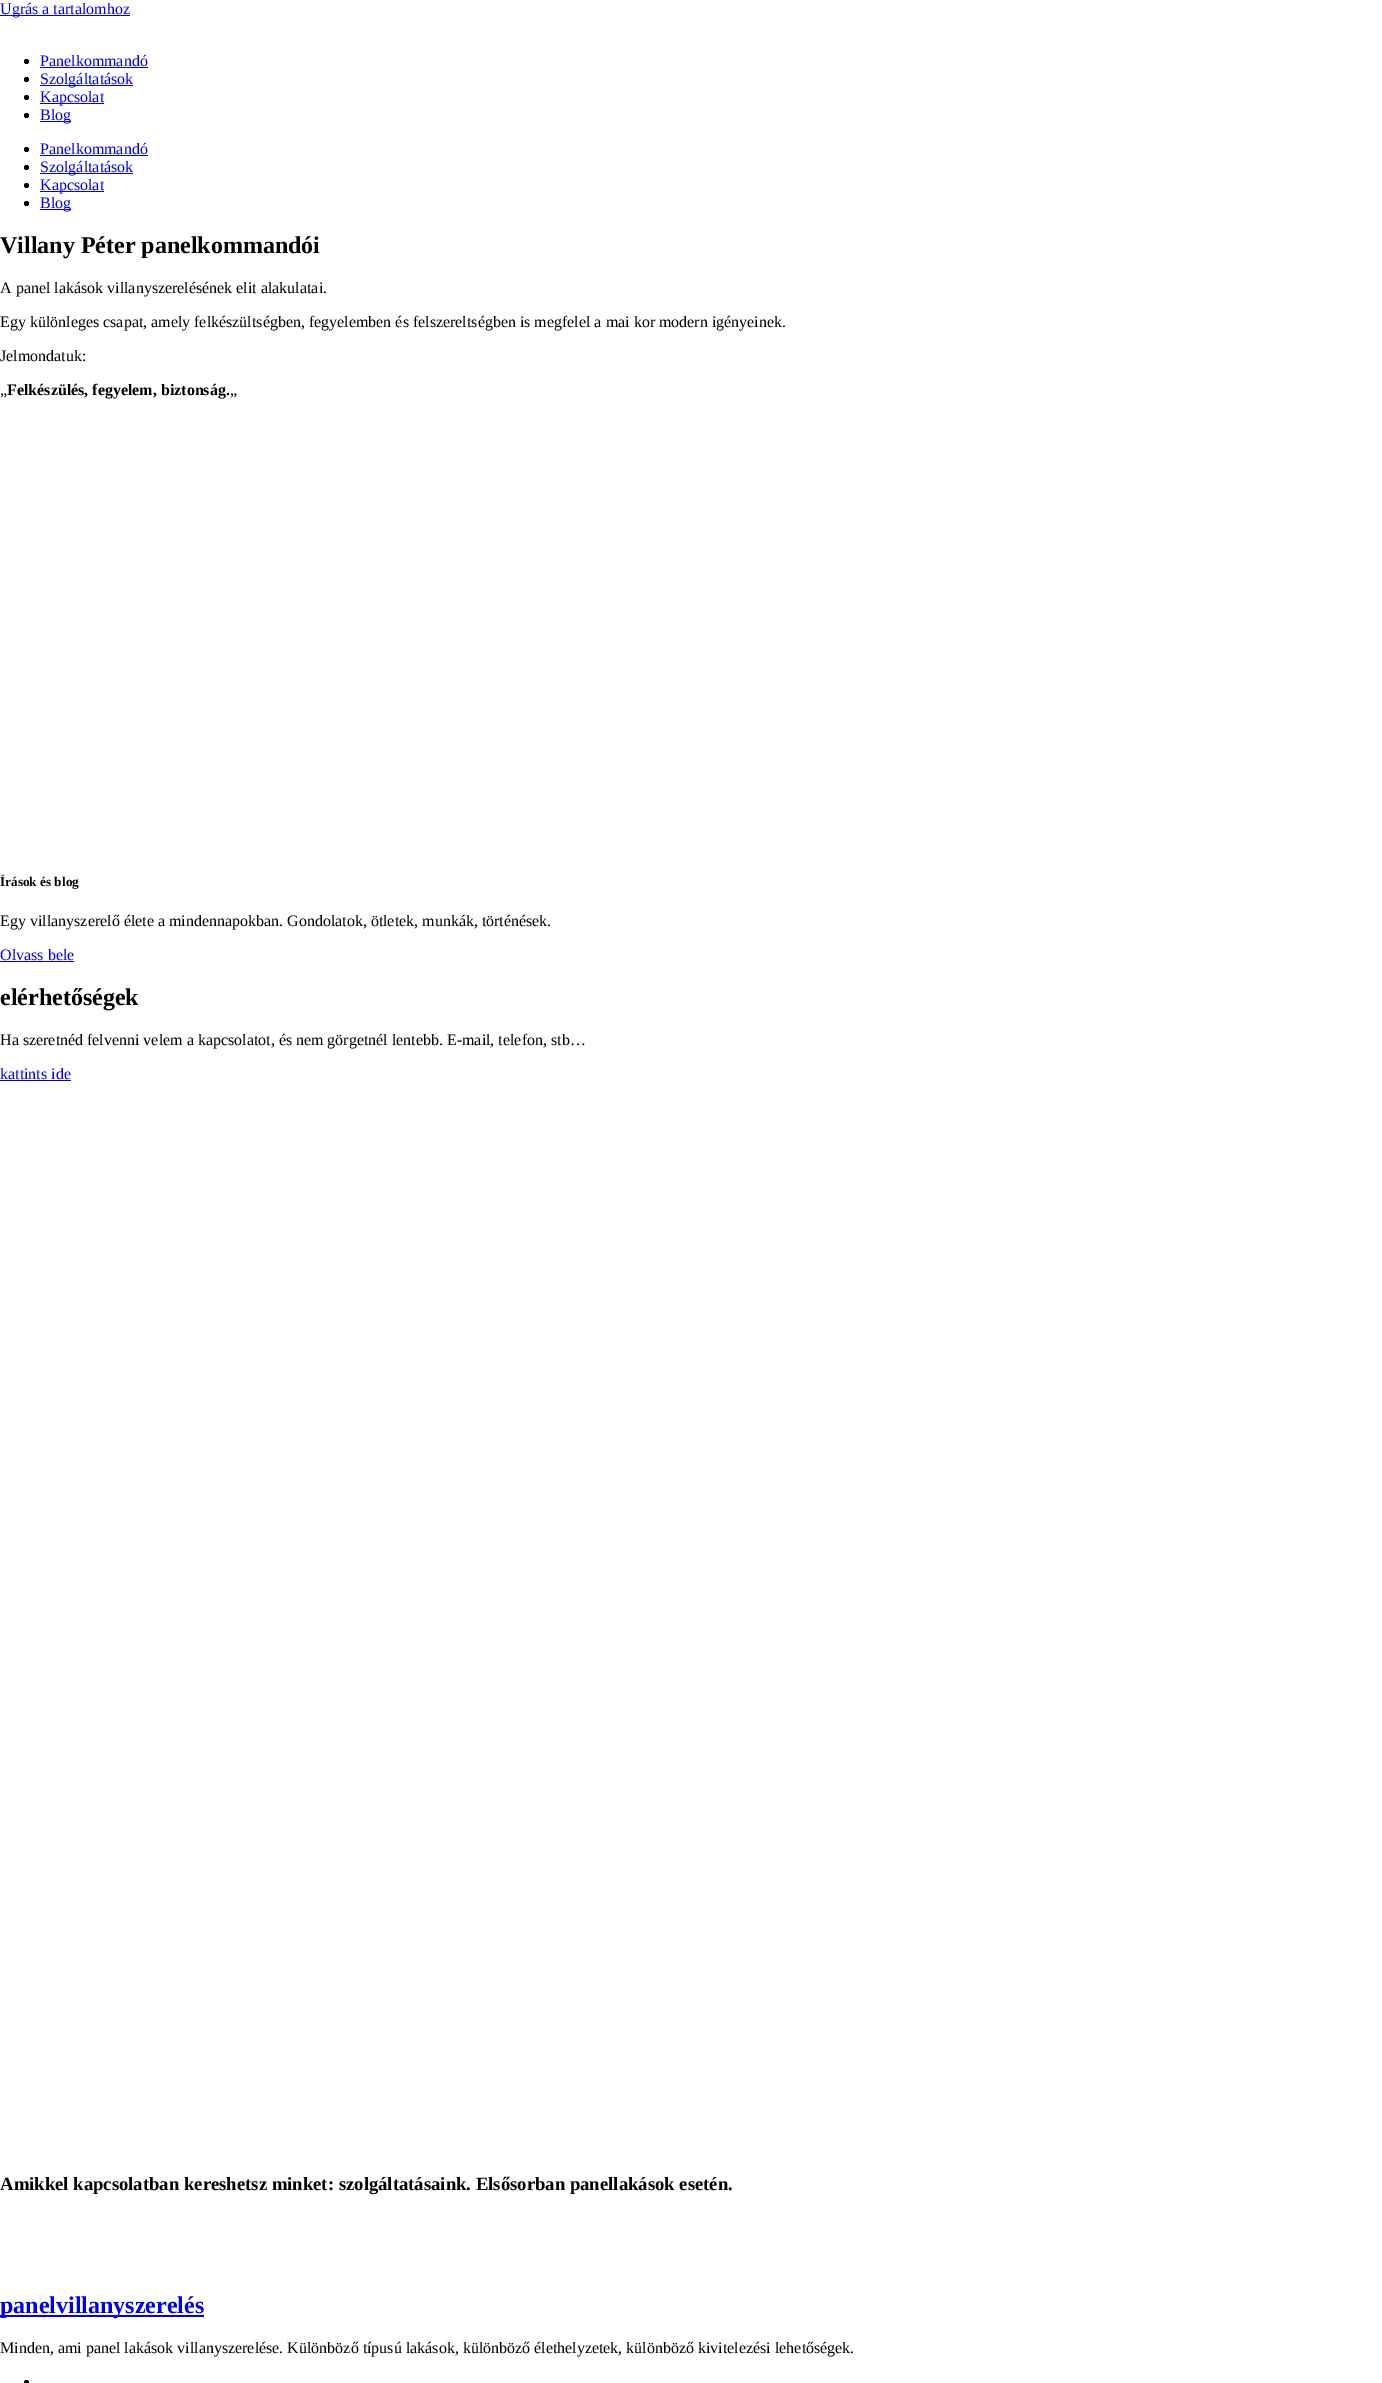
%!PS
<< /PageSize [1382 2383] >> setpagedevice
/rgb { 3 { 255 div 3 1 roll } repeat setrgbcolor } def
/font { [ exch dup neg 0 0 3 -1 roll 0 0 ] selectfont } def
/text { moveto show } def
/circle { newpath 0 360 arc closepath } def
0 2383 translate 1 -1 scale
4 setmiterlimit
255 255 255 rgb
0 0 1382 2383 rectfill
0 0 238 rgb
0 15 130 1 rectfill
0 0 0 rgb
26.5 61.5 2.5 circle fill
0 0 238 rgb
40 67 108 1 rectfill
0 0 0 rgb
26.5 79.5 2.5 circle fill
0 0 238 rgb
40 85 93 1 rectfill
0 0 0 rgb
26.5 97.5 2.5 circle fill
0 0 238 rgb
40 103 64 1 rectfill
0 0 0 rgb
26.5 115.5 2.5 circle fill
0 0 238 rgb
40 121 31 1 rectfill
0 0 0 rgb
26.5 149.5 2.5 circle fill
0 0 238 rgb
40 155 108 1 rectfill
0 0 0 rgb
26.5 167.5 2.5 circle fill
0 0 238 rgb
40 173 93 1 rectfill
0 0 0 rgb
26.5 185.5 2.5 circle fill
0 0 238 rgb
40 191 64 1 rectfill
0 0 0 rgb
26.5 203.5 2.5 circle fill
0 0 238 rgb
40 209 31 1 rectfill
0 961 74 1 rectfill
0 1080 71 1 rectfill
0 2315 204 2 rectfill
0 0 0 rgb
26.5 2382.5 2.5 circle fill
/LiberationSerif-Regular 16 font
0 0 238 rgb
(Ugrás a tartalomhoz) 0 14 text
(Panelkommandó) 40 66 text
(Szolgáltatások) 40 84 text
(Kapcsolat) 40 102 text
(Blog) 40 120 text
(Panelkommandó) 40 154 text
(Szolgáltatások) 40 172 text
(Kapcsolat) 40 190 text
(Blog) 40 208 text
/LiberationSerif-Bold 24 font
0 0 0 rgb
(Villany Péter panelkommandói) 0 253 text
/LiberationSerif-Regular 16 font
(A panel lakások villanyszerelésének elit alakulatai.) 0 293 text
(Egy különleges csapat, amely felkészültségben, fegyelemben és felszereltségben is megfelel a mai kor modern igényeinek.) 0 327 text
(Jelmondatuk:) 0 361 text
(„) 0 395 text
/LiberationSerif-Bold 16 font
(Felkészülés, fegyelem, biztonság.) 7 395 text
/LiberationSerif-Regular 16 font
(„) 230 395 text
/LiberationSerif-Bold 13.25 font
(Írások és blog) 0 886 text
/LiberationSerif-Regular 16 font
(Egy villanyszerelő élete a mindennapokban. Gondolatok, ötletek, munkák, történések.) 0 926 text
0 0 238 rgb
(Olvass bele) 0 960 text
/LiberationSerif-Bold 24 font
0 0 0 rgb
(elérhetőségek) 0 1005 text
/LiberationSerif-Regular 16 font
(Ha szeretnéd felvenni velem a kapcsolatot, és nem görgetnél lentebb. E-mail, telefon, stb…) 0 1045 text
0 0 238 rgb
(kattints ide) 0 1079 text
/LiberationSerif-Bold 18.7 font
0 0 0 rgb
(Amikkel kapcsolatban kereshetsz minket: szolgáltatásaink. Elsősorban panellakások esetén.) 0 2190 text
/LiberationSerif-Bold 24 font
0 0 238 rgb
(panelvillanyszerelés) 0 2313 text
/LiberationSerif-Regular 16 font
0 0 0 rgb
(Minden, ami panel lakások villanyszerelése. Különböző típusú lakások, különböző élethelyzetek, különböző kivitelezési lehetőségek.) 0 2353 text
showpage
